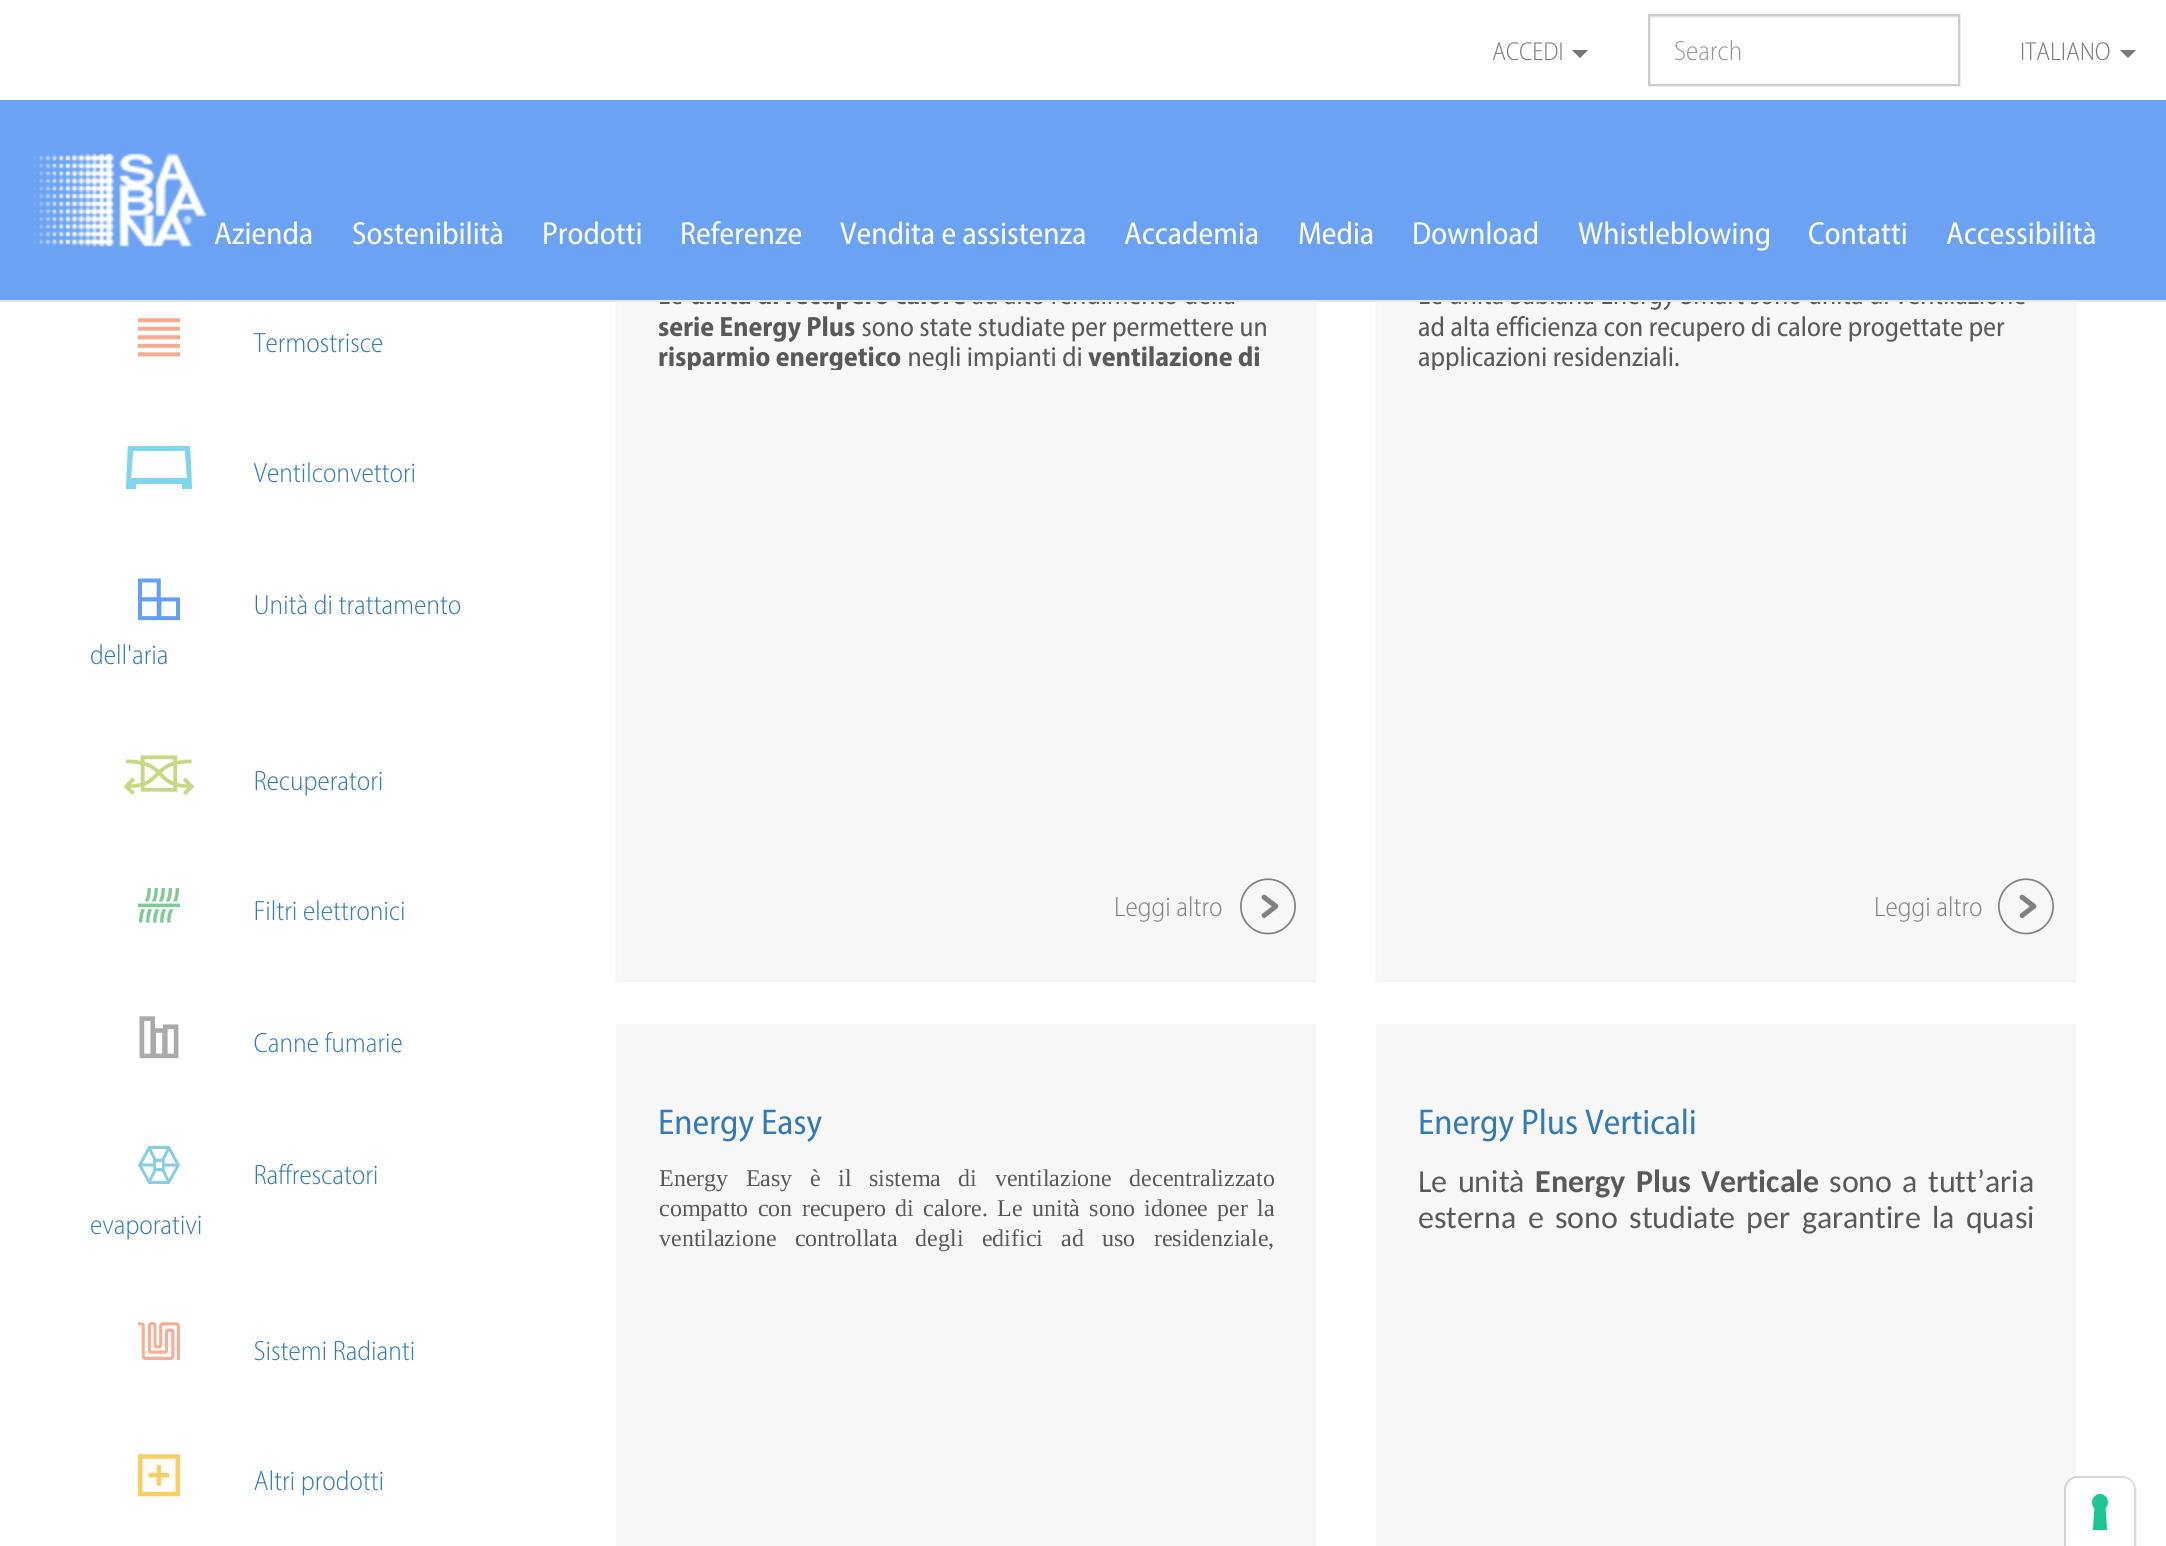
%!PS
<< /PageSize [2166 1546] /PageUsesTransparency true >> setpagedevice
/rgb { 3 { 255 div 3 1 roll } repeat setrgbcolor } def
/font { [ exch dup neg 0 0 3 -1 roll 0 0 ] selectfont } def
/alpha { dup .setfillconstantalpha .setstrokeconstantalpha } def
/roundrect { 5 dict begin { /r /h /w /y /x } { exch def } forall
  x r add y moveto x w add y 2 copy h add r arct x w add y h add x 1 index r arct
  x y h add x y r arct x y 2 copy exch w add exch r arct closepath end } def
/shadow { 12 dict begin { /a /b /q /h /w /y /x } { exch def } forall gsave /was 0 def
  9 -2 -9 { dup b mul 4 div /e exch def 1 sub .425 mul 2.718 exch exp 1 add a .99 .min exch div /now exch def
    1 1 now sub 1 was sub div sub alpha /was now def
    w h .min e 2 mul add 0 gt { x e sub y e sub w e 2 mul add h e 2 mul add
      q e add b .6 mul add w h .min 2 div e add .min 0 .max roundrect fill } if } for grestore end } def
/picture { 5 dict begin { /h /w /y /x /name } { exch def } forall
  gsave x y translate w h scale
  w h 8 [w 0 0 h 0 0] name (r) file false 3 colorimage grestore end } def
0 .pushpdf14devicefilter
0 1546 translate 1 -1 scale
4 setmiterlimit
255 255 255 rgb
0 0 2166 1546 rectfill
0 0 0 rgb
616 142 700 840 0 1 0.05 shadow
1376 142 700 840 0 1 0.05 shadow
231 231 231 rgb
0 300 2166 2 rectfill
(img_01.rgb) 1492 42 70 19 picture
119 119 119 rgb
1572 50 moveto 16 0 rlineto -8 8 rlineto closepath fill
236 236 236 rgb
1650 16 308 2 rectfill
204 204 204 rgb
2 setlinewidth
1649 15 310 70 rectstroke
(img_02.rgb) 1675 40 66 21 picture
(img_03.rgb) 2022 42 88 19 picture
119 119 119 rgb
2120 50 moveto 16 0 rlineto -8 8 rlineto closepath fill
108 162 243 rgb
0 100 2166 200 rectfill
(img_04.rgb) 33 153 174 94 picture
(img_05.rgb) 214 221 98 24 picture
(img_06.rgb) 353 221 149 24 picture
(img_07.rgb) 544 221 97 24 picture
(img_08.rgb) 682 221 120 24 picture
(img_09.rgb) 840 221 245 24 picture
(img_10.rgb) 1124 221 134 24 picture
(img_11.rgb) 1299 221 74 24 picture
(img_12.rgb) 1414 221 124 24 picture
(img_13.rgb) 1578 221 192 30 picture
(img_14.rgb) 1809 222 97 23 picture
(img_15.rgb) 1946 221 149 24 picture
(img_16.rgb) 138 318 42 39 picture
(img_17.rgb) 253 333 130 20 picture
128 214 237 rgb
190 446 moveto -62 0 rlineto -2 43 rlineto 10 0 rlineto 0 -5 rlineto 46 0 rlineto 0 5 rlineto 10 0 rlineto closepath 131 478 moveto 2 -27 rlineto 52 0 rlineto 2 27 rlineto closepath fill
(img_18.rgb) 253 462 162 21 picture
(img_19.rgb) 138 578 42 43 picture
(img_20.rgb) 255 594 206 21 picture
(img_21.rgb) 91 644 76 21 picture
(img_22.rgb) 123 755 72 41 picture
(img_23.rgb) 255 771 127 25 picture
(img_24.rgb) 138 888 42 35 picture
(img_25.rgb) 255 900 149 21 picture
(img_26.rgb) 139 1016 40 43 picture
(img_27.rgb) 254 1032 148 21 picture
(img_28.rgb) 138 1146 42 38 picture
(img_29.rgb) 255 1164 122 21 picture
(img_30.rgb) 91 1215 110 25 picture
(img_31.rgb) 138 1322 42 38 picture
(img_32.rgb) 254 1340 160 21 picture
(img_33.rgb) 138 1454 42 43 picture
(img_34.rgb) 254 1470 129 26 picture
247 247 247 rgb
617 302 698 678 rectfill
(img_35.rgb) 660 302 22 3 picture
(img_36.rgb) 692 302 273 8 picture
(img_37.rgb) 972 302 263 3 picture
(img_38.rgb) 658 316 197 26 picture
(img_39.rgb) 862 316 404 26 picture
(img_40.rgb) 659 346 242 24 picture
(img_41.rgb) 909 346 172 24 picture
(img_42.rgb) 1088 346 171 21 picture
(img_43.rgb) 1116 896 106 26 picture
(img_44.rgb) 1240 878 56 57 picture
1377 302 698 678 rectfill
(img_45.rgb) 1420 302 605 8 picture
(img_46.rgb) 1418 316 587 26 picture
(img_47.rgb) 1418 346 261 24 picture
(img_43.rgb) 1876 896 106 26 picture
(img_44.rgb) 1998 878 56 57 picture
616 1024 700 522 rectfill
(img_48.rgb) 660 1109 162 33 picture
1376 1024 700 522 rectfill
(img_49.rgb) 1420 1108 275 34 picture
0.15 alpha
0 0 0 rgb
2078 1477 moveto 44 0 rlineto 7 0 13 6 13 13 rcurveto 0 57 rlineto -70 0 rlineto 0 -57 rlineto 0 -7 6 -13 13 -13 rcurveto closepath stroke
1 alpha
255 255 255 rgb
2078 1478 moveto 44 0 rlineto 6.5 0 12 5.5 12 12 rcurveto 0 56 rlineto -68 0 rlineto 0 -56 rlineto 0 -6.5 5.5 -12 12 -12 rcurveto closepath fill
28 198 145 rgb
2100 1494 moveto 7 0 10.5 9.5 5.5 14 rcurveto 1.5 22 rlineto -14 0 rlineto 1.5 -22 rlineto -5 -4.5 -1.5 -14 5.5 -14 rcurveto closepath eofill
/LiberationSerif-Regular 24 font
88 89 91 rgb
659 1186 moveto 11.5 0 32 (Energy Easy è il sistema di ventilazione decentralizzato) widthshow
659 1216 moveto 3.4 0 32 (compatto con recupero di calore. Le unità sono idonee per la) widthshow
659 1246 moveto 12.25 0 32 (ventilazione controllata degli edifici ad uso residenziale,) widthshow
/Carlito-Regular 32 font
1418 1192 moveto 3 0 32 (Le unità) widthshow
/Carlito-Bold 32 font
1535 1192 moveto 3 0 32 (Energy Plus Verticale) widthshow
/Carlito-Regular 32 font
1829 1192 moveto 3 0 32 (sono a tutt’aria) widthshow
1418 1228 moveto 4 0 32 (esterna e sono studiate per garantire la quasi) widthshow
.poppdf14devicefilter showpage
